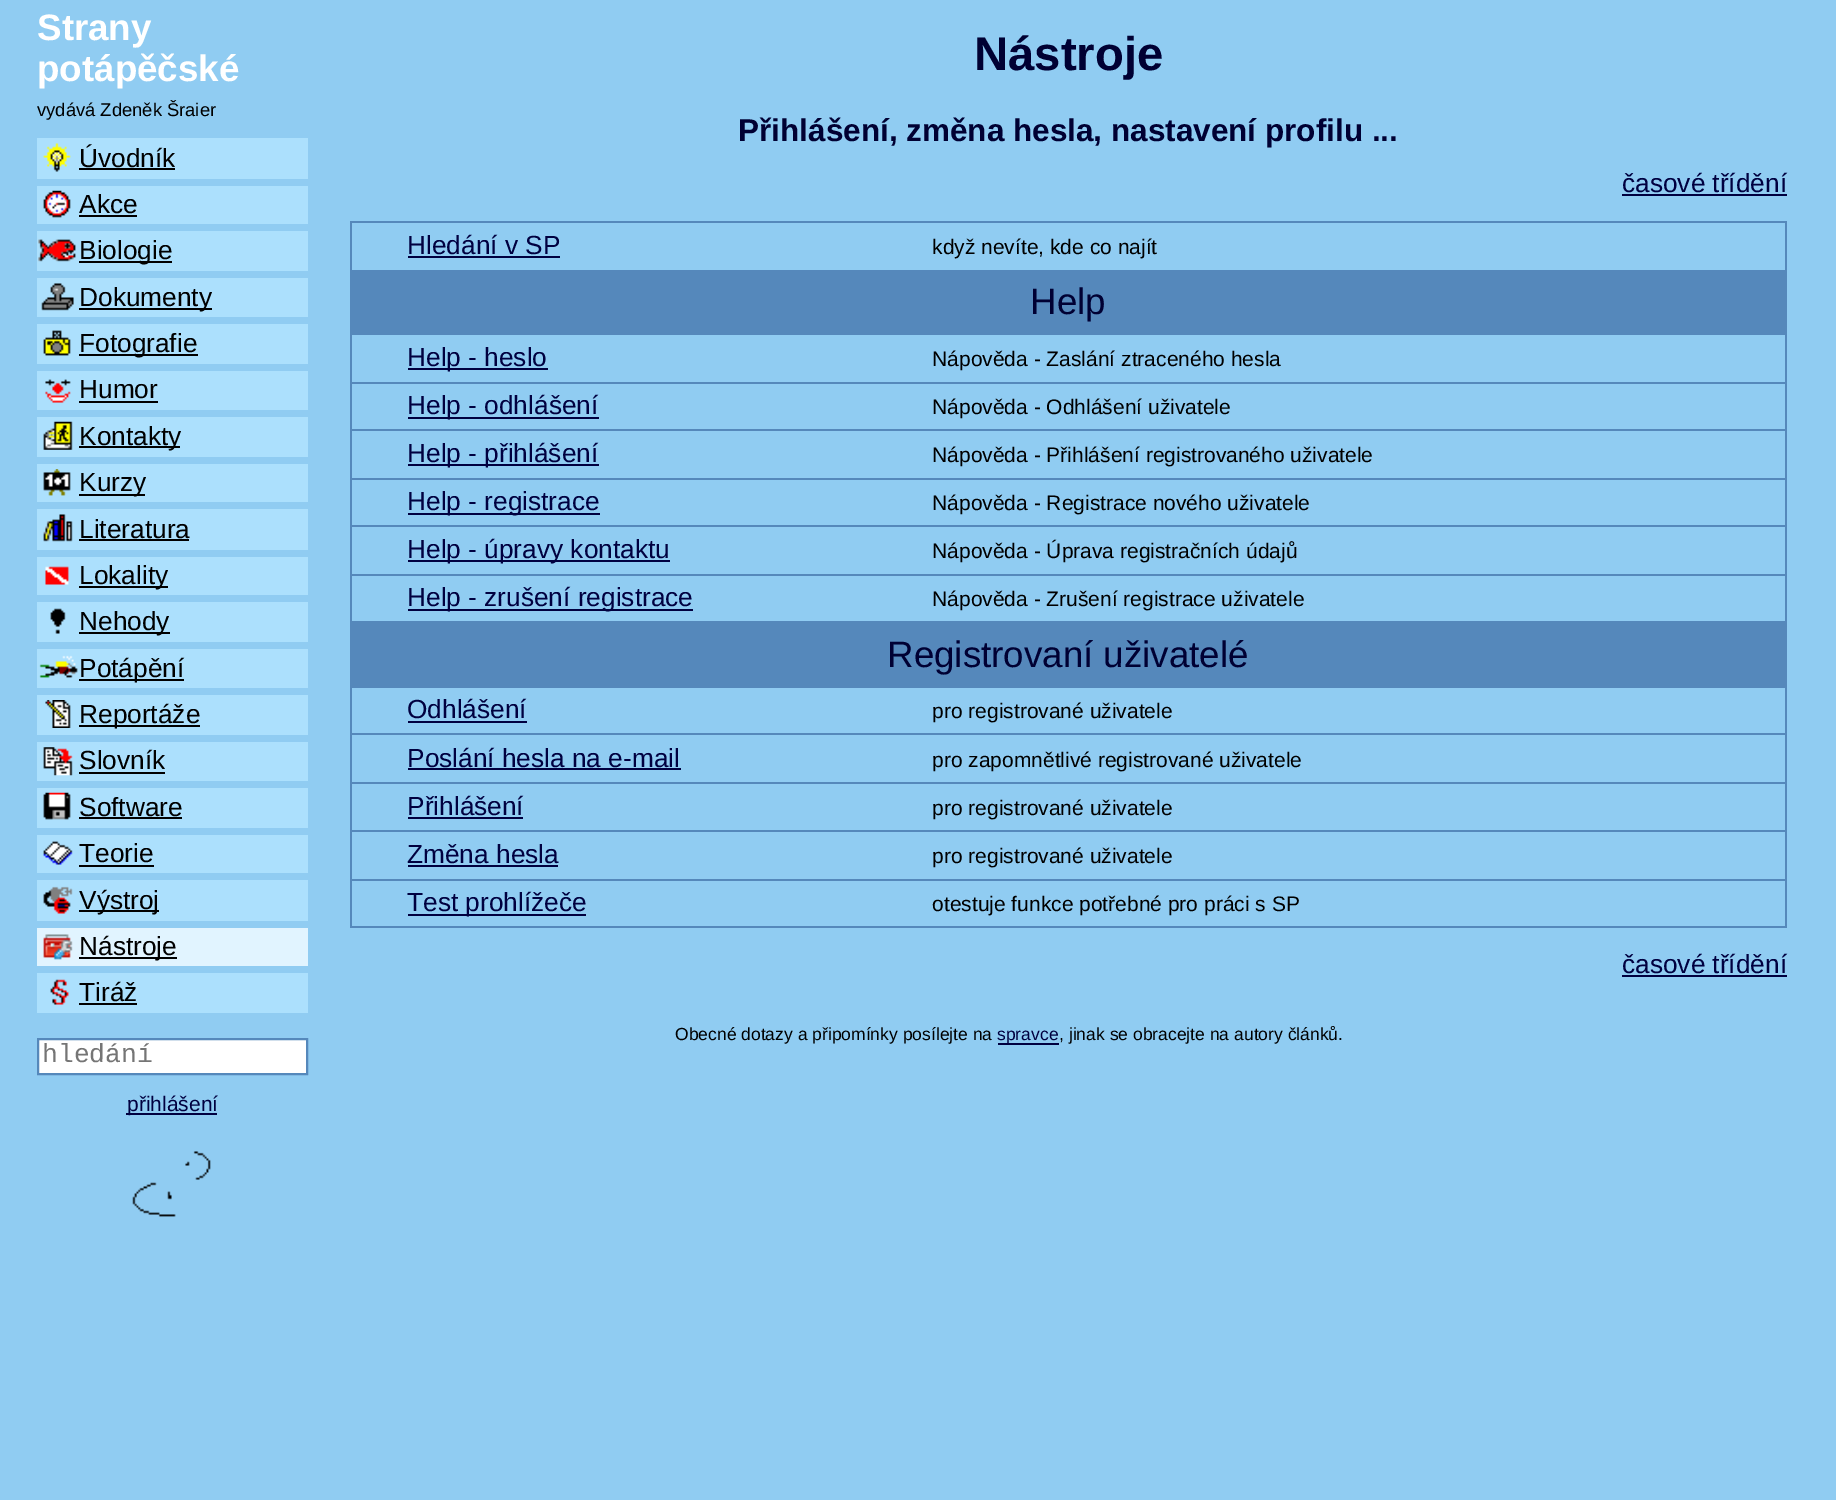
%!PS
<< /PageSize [1836 1500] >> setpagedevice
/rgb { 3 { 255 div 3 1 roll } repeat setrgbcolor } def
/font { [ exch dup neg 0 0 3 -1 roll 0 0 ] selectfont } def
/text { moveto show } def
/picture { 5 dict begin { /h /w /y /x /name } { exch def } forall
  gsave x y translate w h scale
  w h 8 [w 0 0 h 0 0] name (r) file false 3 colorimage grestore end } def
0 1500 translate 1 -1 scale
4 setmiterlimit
144 204 242 rgb
0 0 1836 1500 rectfill
172 224 253 rgb
37 138 271 41 rectfill
(img_01.rgb) 43 143 28 29 picture
0 0 0 rgb
79 168 96 2 rectfill
172 224 253 rgb
37 186 271 38 rectfill
(img_02.rgb) 43 190 28 28 picture
0 0 0 rgb
79 215 58 2 rectfill
172 224 253 rgb
37 231 271 40 rectfill
(img_03.rgb) 38 239 38 23 picture
0 0 0 rgb
79 261 93 2 rectfill
172 224 253 rgb
37 278 271 39 rectfill
(img_04.rgb) 41 283 33 28 picture
0 0 0 rgb
79 308 133 2 rectfill
172 224 253 rgb
37 324 271 40 rectfill
(img_05.rgb) 43 330 28 26 picture
0 0 0 rgb
79 354 119 2 rectfill
172 224 253 rgb
37 371 271 39 rectfill
(img_06.rgb) 45 379 26 24 picture
0 0 0 rgb
79 401 79 2 rectfill
172 224 253 rgb
37 417 271 40 rectfill
(img_07.rgb) 43 421 30 29 picture
0 0 0 rgb
79 446 101 2 rectfill
172 224 253 rgb
37 464 271 38 rectfill
(img_08.rgb) 43 469 28 27 picture
0 0 0 rgb
79 494 66 2 rectfill
172 224 253 rgb
37 509 271 41 rectfill
(img_09.rgb) 43 514 30 28 picture
0 0 0 rgb
79 539 110 2 rectfill
172 224 253 rgb
37 557 271 38 rectfill
(img_10.rgb) 45 566 24 19 picture
0 0 0 rgb
79 586 89 2 rectfill
172 224 253 rgb
37 602 271 40 rectfill
(img_11.rgb) 50 608 16 26 picture
0 0 0 rgb
79 632 91 2 rectfill
172 224 253 rgb
37 649 271 39 rectfill
(img_12.rgb) 39 655 39 23 picture
0 0 0 rgb
79 679 105 2 rectfill
172 224 253 rgb
37 695 271 40 rectfill
(img_13.rgb) 45 700 26 28 picture
0 0 0 rgb
79 725 121 2 rectfill
172 224 253 rgb
37 742 271 39 rectfill
(img_14.rgb) 43 747 30 29 picture
0 0 0 rgb
79 772 86 2 rectfill
172 224 253 rgb
37 788 271 40 rectfill
(img_15.rgb) 43 792 28 28 picture
0 0 0 rgb
79 817 103 2 rectfill
172 224 253 rgb
37 835 271 38 rectfill
(img_16.rgb) 43 841 30 24 picture
0 0 0 rgb
79 865 75 2 rectfill
172 224 253 rgb
37 880 271 41 rectfill
(img_17.rgb) 43 886 30 28 picture
0 0 0 rgb
79 910 80 2 rectfill
225 244 255 rgb
37 928 271 38 rectfill
(img_18.rgb) 43 934 30 26 picture
0 0 0 rgb
79 957 98 2 rectfill
172 224 253 rgb
37 973 271 40 rectfill
(img_19.rgb) 50 979 19 26 picture
0 0 0 rgb
79 1003 58 2 rectfill
255 255 255 rgb
38 1039 moveto 269 0 rlineto 0 35 rlineto -269 0 rlineto closepath gsave fill grestore
85 136 187 rgb
2 setlinewidth
stroke
0 0 64 rgb
126 1113 91 2 rectfill
(img_20.rgb) 132 1151 79 66 picture
1622 194 165 2 rectfill
85 136 187 rgb
350 221 1437 2 rectfill
1785 221 2 707 rectfill
350 221 2 707 rectfill
352 270 1433 65 rectfill
0 0 64 rgb
408 256 152 2 rectfill
85 136 187 rgb
352 382 1433 2 rectfill
0 0 64 rgb
408 368 140 2 rectfill
85 136 187 rgb
352 429 1433 2 rectfill
0 0 64 rgb
408 417 191 2 rectfill
85 136 187 rgb
352 478 1433 2 rectfill
0 0 64 rgb
408 464 191 2 rectfill
85 136 187 rgb
352 525 1433 2 rectfill
0 0 64 rgb
408 513 192 2 rectfill
85 136 187 rgb
352 574 1433 2 rectfill
0 0 64 rgb
408 560 262 2 rectfill
85 136 187 rgb
352 621 1433 67 rectfill
0 0 64 rgb
408 609 285 2 rectfill
85 136 187 rgb
352 733 1433 2 rectfill
0 0 64 rgb
408 721 119 2 rectfill
85 136 187 rgb
352 782 1433 2 rectfill
0 0 64 rgb
408 768 273 2 rectfill
85 136 187 rgb
352 830 1433 2 rectfill
0 0 64 rgb
408 817 115 2 rectfill
85 136 187 rgb
352 879 1433 2 rectfill
0 0 64 rgb
408 865 150 2 rectfill
85 136 187 rgb
352 926 1433 2 rectfill
0 0 64 rgb
408 914 178 2 rectfill
1622 975 165 2 rectfill
998 1043 61 2 rectfill
/LiberationSans-Bold 36.75 font
255 255 255 rgb
(Strany) 37 40 text
(potápěčské) 37 81 text
/LiberationSans-Regular 18.4 font
0 0 0 rgb
(vydává Zdeněk Šraier) 37 116 text
/LiberationSans-Regular 26.25 font
(Úvodník) 79 167 text
(Akce) 79 213 text
(Biologie) 79 259 text
(Dokumenty) 79 306 text
(Fotografie) 79 352 text
(Humor) 79 398 text
(Kontakty) 79 445 text
(Kurzy) 79 491 text
(Literatura) 79 538 text
(Lokality) 79 584 text
(Nehody) 79 630 text
(Potápění) 79 677 text
(Reportáže) 79 723 text
(Slovník) 79 769 text
(Software) 79 816 text
(Teorie) 79 862 text
(Výstroj) 79 909 text
(Nástroje) 79 955 text
(Tiráž) 79 1001 text
/LiberationMono-Regular 26.25 font
117 117 117 rgb
(hledání) 42 1062 text
/LiberationSans-Regular 21 font
0 0 64 rgb
(přihlášení) 127 1111 text
/LiberationSans-Bold 47.25 font
0 0 51 rgb
(Nástroje) 974 70 text
/LiberationSans-Bold 31.5 font
(Přihlášení, změna hesla, nastavení profilu ...) 738 141 text
/LiberationSans-Regular 26.25 font
0 0 64 rgb
(časové třídění) 1622 192 text
(Hledání v SP) 407 254 text
/LiberationSans-Regular 21 font
0 0 0 rgb
(když nevíte, kde co najít) 932 254 text
/LiberationSans-Regular 36.75 font
0 0 51 rgb
(Help) 1030 314 text
/LiberationSans-Regular 26.25 font
0 0 64 rgb
(Help - heslo) 407 366 text
/LiberationSans-Regular 21 font
0 0 0 rgb
(Nápověda - Zaslání ztraceného hesla) 932 366 text
/LiberationSans-Regular 26.25 font
0 0 64 rgb
(Help - odhlášení) 407 414 text
/LiberationSans-Regular 21 font
0 0 0 rgb
(Nápověda - Odhlášení uživatele) 932 414 text
/LiberationSans-Regular 26.25 font
0 0 64 rgb
(Help - přihlášení) 407 462 text
/LiberationSans-Regular 21 font
0 0 0 rgb
(Nápověda - Přihlášení registrovaného uživatele) 932 462 text
/LiberationSans-Regular 26.25 font
0 0 64 rgb
(Help - registrace) 407 510 text
/LiberationSans-Regular 21 font
0 0 0 rgb
(Nápověda - Registrace nového uživatele) 932 510 text
/LiberationSans-Regular 26.25 font
0 0 64 rgb
(Help - úpravy kontaktu) 407 558 text
/LiberationSans-Regular 21 font
0 0 0 rgb
(Nápověda - Úprava registračních údajů) 932 558 text
/LiberationSans-Regular 26.25 font
0 0 64 rgb
(Help - zrušení registrace) 407 606 text
/LiberationSans-Regular 21 font
0 0 0 rgb
(Nápověda - Zrušení registrace uživatele) 932 606 text
/LiberationSans-Regular 36.75 font
0 0 51 rgb
(Registrovaní uživatelé) 887 667 text
/LiberationSans-Regular 26.25 font
0 0 64 rgb
(Odhlášení) 407 718 text
/LiberationSans-Regular 21 font
0 0 0 rgb
(pro registrované uživatele) 932 718 text
/LiberationSans-Regular 26.25 font
0 0 64 rgb
(Poslání hesla na e-mail) 407 767 text
/LiberationSans-Regular 21 font
0 0 0 rgb
(pro zapomnětlivé registrované uživatele) 932 767 text
/LiberationSans-Regular 26.25 font
0 0 64 rgb
(Přihlášení) 407 815 text
/LiberationSans-Regular 21 font
0 0 0 rgb
(pro registrované uživatele) 932 815 text
/LiberationSans-Regular 26.25 font
0 0 64 rgb
(Změna hesla) 407 863 text
/LiberationSans-Regular 21 font
0 0 0 rgb
(pro registrované uživatele) 932 863 text
/LiberationSans-Regular 26.25 font
0 0 64 rgb
(Test prohlížeče) 407 911 text
/LiberationSans-Regular 21 font
0 0 0 rgb
(otestuje funkce potřebné pro práci s SP) 932 911 text
/LiberationSans-Regular 26.25 font
0 0 64 rgb
(časové třídění) 1622 973 text
/LiberationSans-Regular 17.5 font
0 0 0 rgb
(Obecné dotazy a připomínky posílejte na) 675 1040 text
0 0 64 rgb
(spravce) 997 1040 text
0 0 0 rgb
(, jinak se obracejte na autory článků.) 1059 1040 text
showpage
